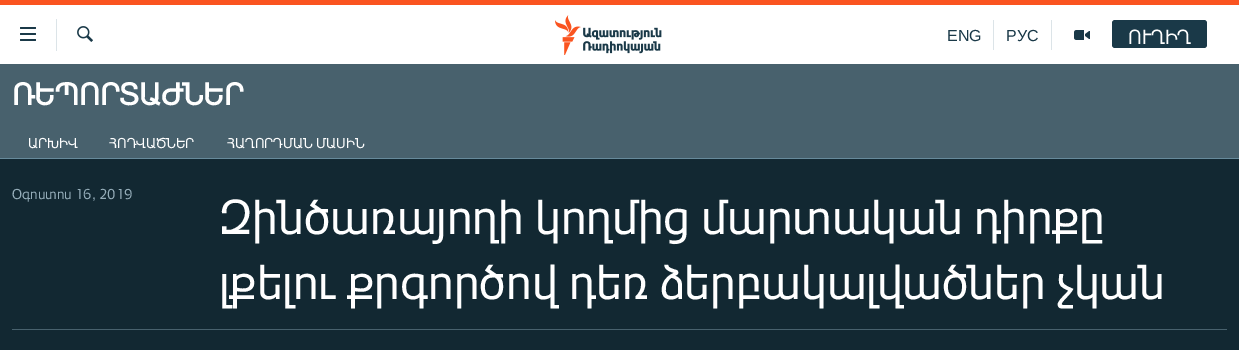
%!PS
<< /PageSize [1239 350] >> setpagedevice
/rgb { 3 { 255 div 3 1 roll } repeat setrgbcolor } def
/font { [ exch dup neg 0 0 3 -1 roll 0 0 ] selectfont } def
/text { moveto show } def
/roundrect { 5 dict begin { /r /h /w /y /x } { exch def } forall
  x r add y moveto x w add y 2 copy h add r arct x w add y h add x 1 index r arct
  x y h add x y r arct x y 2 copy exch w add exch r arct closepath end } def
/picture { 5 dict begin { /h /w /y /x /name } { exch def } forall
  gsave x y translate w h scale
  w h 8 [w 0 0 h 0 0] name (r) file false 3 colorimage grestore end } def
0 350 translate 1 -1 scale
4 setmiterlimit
255 255 255 rgb
0 0 1239 350 rectfill
250 84 32 rgb
0 0 1239 5 rectfill
(img_01.rgb) 20 27 16 14 picture
220 228 232 rgb
56 19 1 32 rectfill
(img_02.rgb) 77 26 16 16 picture
(img_03.rgb) 555 15 107 40 picture
993 20 1 30 rectfill
1051 20 1 30 rectfill
(img_04.rgb) 1074 30 16 10 picture
26 57 72 rgb
1112 20 95 28 3 roundrect fill
72 97 109 rgb
0 64 1239 94 rectfill
18 40 50 rgb
0 159 1239 191 rectfill
103 138 155 rgb
0 158 1239 1 rectfill
72 97 109 rgb
12 329 1215 1 rectfill
/LiberationSans-Regular 16 font
26 57 72 rgb
(ENG) 947 41 text
(РУС) 1006 41 text
/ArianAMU-Regular 20 font
255 255 255 rgb
(ՈՒՂԻՂ) 1128 44 text
/ArianAMU-Bold 30.5 font
(ՌԵՊՈՐՏԱԺՆԵՐ) 12 105 text
/ArianAMU-Regular 14 font
(ԱՐԽԻՎ) 28 148 text
(ՀՈԴՎԱԾՆԵՐ) 109 148 text
(ՀԱՂՈՐԴՄԱՆ ՄԱՍԻՆ) 227 148 text
149 173 185 rgb
(Օգոստոս 16) 12 199 text
/LiberationSans-Regular 14 font
(,) 92 199 text
/ArianAMU-Regular 14 font
(2019) 99 199 text
/ArianAMU-Regular 48 font
255 255 255 rgb
(Զինծառայողի կողմից մարտական դիրքը) 219 234 text
(լքելու քրգործով դեռ ձերբակալվածներ չկան) 219 299 text
showpage
